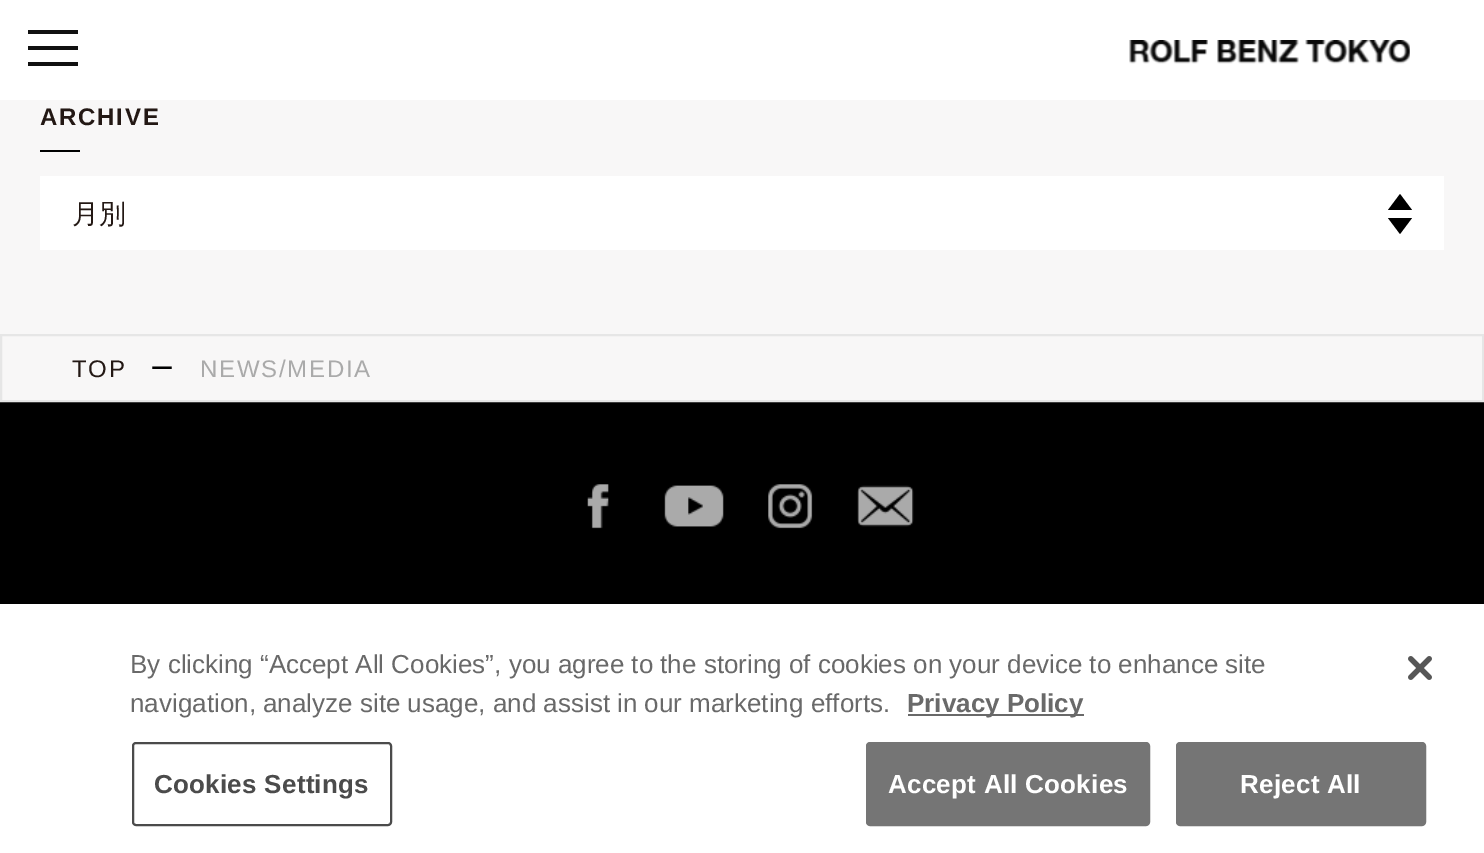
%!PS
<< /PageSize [1484 853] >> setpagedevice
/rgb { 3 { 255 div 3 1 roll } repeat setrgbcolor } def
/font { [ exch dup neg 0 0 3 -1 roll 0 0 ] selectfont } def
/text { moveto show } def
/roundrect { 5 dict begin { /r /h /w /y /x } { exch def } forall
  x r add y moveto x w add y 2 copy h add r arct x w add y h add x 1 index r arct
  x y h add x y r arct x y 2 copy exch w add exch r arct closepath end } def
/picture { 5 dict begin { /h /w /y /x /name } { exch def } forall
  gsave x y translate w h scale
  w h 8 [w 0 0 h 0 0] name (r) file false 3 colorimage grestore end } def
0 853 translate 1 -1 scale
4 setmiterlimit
248 247 247 rgb
0 0 1484 853 rectfill
255 255 255 rgb
0 0 1484 100 rectfill
17 17 17 rgb
28 46 50 4 rectfill
28 30 50 4 rectfill
28 62 50 4 rectfill
(img_01.rgb) 1129 40 281 24 picture
0 0 0 rgb
40 150 40 2 rectfill
255 255 255 rgb
40 176 1404 74 rectfill
0 0 0 rgb
1412 210 moveto -24 0 rlineto 12 -16 rlineto closepath fill
1388 218 moveto 24 0 rlineto -12 16 rlineto closepath fill
0 402 1484 202 rectfill
230 230 230 rgb
2 setlinewidth
1 335 1482 66 rectstroke
(img_02.rgb) 587 484 22 45 picture
(img_03.rgb) 664 485 60 42 picture
(img_04.rgb) 768 484 45 45 picture
(img_05.rgb) 857 485 57 42 picture
255 255 255 rgb
0 604 1484 249 rectfill
105 105 105 rgb
908 714 176 2 rectfill
75 75 75 rgb
133 743 258 82 3 roundrect stroke
117 117 117 rgb
867 743 282 82 3 roundrect gsave fill grestore
stroke
1177 743 248 82 3 roundrect gsave fill grestore
stroke
(img_06.rgb) 1408 656 24 24 picture
/LiberationSans-Bold 24 font
35 24 20 rgb
40 125 moveto 1.75 0 (ARCHIVE) ashow
/WenQuanYiZenHei-Medium 27 font
(月別) 72 223 text
/LiberationSans-Regular 24 font
72 377 moveto 1.75 0 (TOP) ashow
/WenQuanYiZenHei-Medium 24 font
0 0 0 rgb
150 377 moveto 1.75 0 (ー) ashow
/LiberationSans-Regular 24 font
170 170 170 rgb
200 377 moveto 1.75 0 (NEWS/MEDIA) ashow
/LiberationSans-Regular 26 font
105 105 105 rgb
(By clicking “Accept All Cookies”, you agree to the storing of cookies on your device to enhance site) 130 673 text
(navigation, analyze site usage, and assist in our marketing efforts.) 130 712 text
/LiberationSans-Bold 26 font
(Privacy Policy) 907 712 text
75 75 75 rgb
154 793 moveto 0.25 0 (Cookies Settings) ashow
255 255 255 rgb
888 793 moveto 0.25 0 (Accept All Cookies) ashow
1240 793 moveto 0.25 0 (Reject All) ashow
showpage
